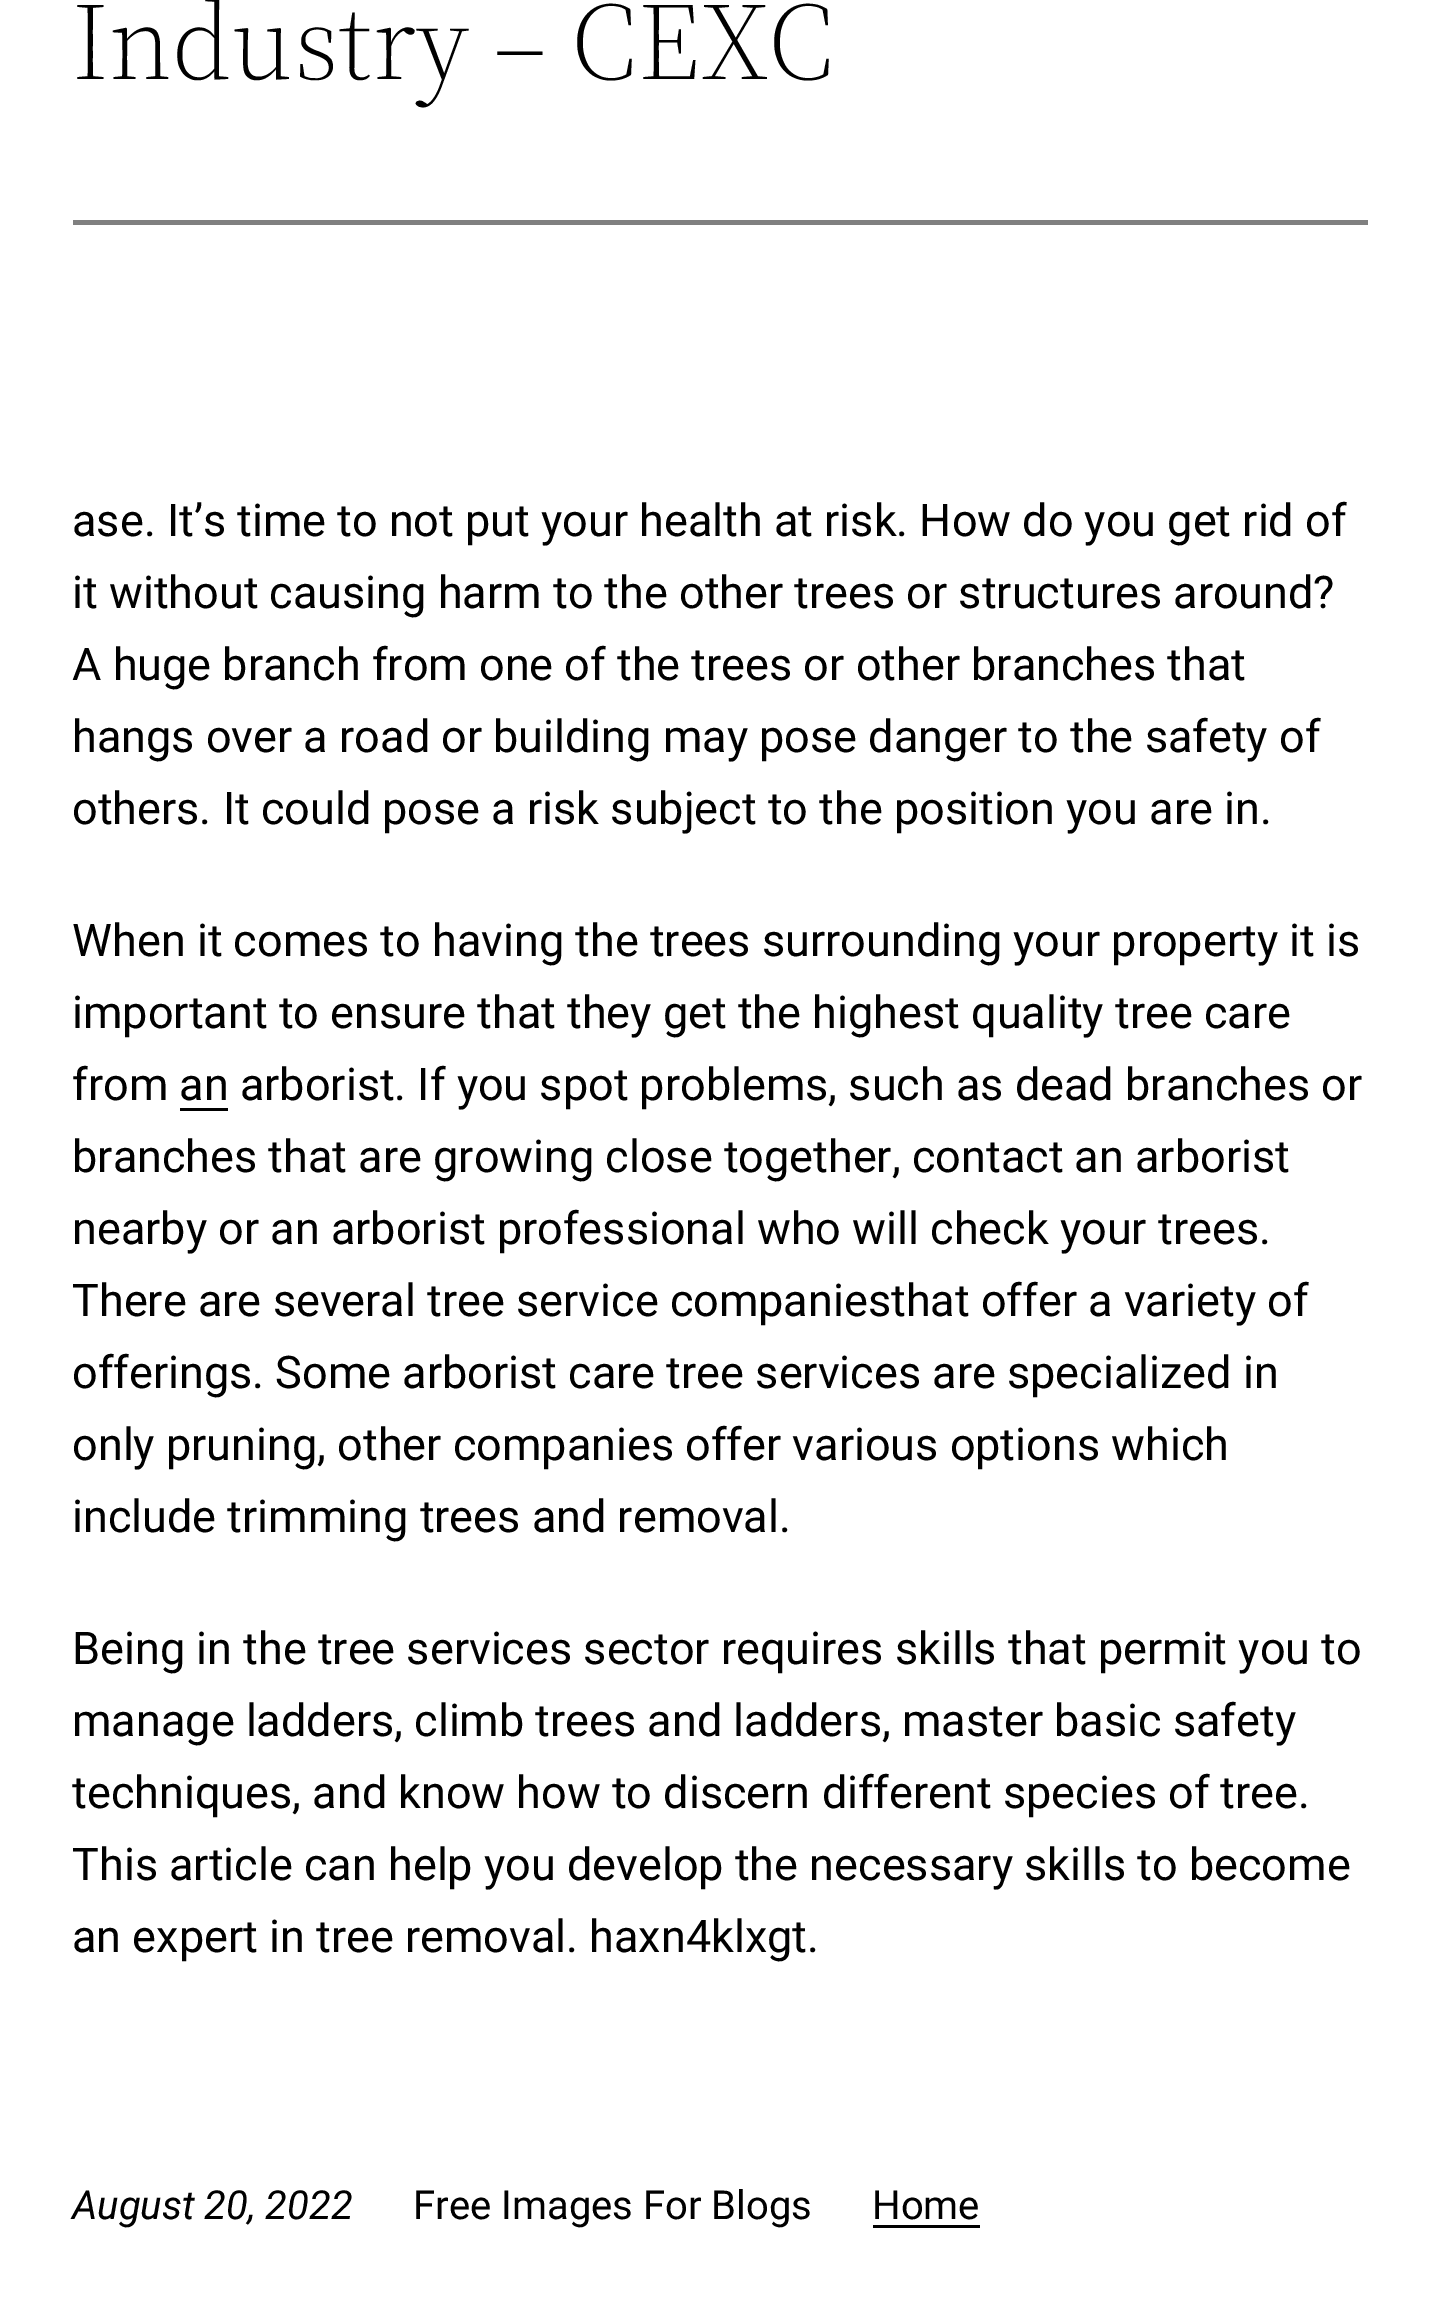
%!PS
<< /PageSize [1439 2314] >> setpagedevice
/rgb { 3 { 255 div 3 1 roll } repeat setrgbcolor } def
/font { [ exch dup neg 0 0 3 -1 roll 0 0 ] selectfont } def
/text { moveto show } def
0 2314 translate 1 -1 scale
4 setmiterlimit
255 255 255 rgb
0 0 1439 2314 rectfill
128 128 128 rgb
73 220 1295 5 rectfill
0 0 0 rgb
180 1108 48 3 rectfill
873 2225 107 3 rectfill
/SourceSerif4-Light 110 font
(Industry – CEXC) 72 79 text
/Roboto-Regular 45 font
(ase. It’s time to not put your health at risk. How do you get rid of) 72 536 text
(it without causing harm to the other trees or structures around?) 72 608 text
(A huge branch from one of the trees or other branches that) 72 680 text
(hangs over a road or building may pose danger to the safety of) 72 752 text
(others. It could pose a risk subject to the position you are in.) 72 824 text
(When it comes to having the trees surrounding your property it is) 72 956 text
(important to ensure that they get the highest quality tree care) 72 1028 text
(from an arborist. If you spot problems, such as dead branches or) 72 1100 text
(branches that are growing close together, contact an arborist) 72 1172 text
(nearby or an arborist professional who will check your trees.) 72 1244 text
(There are several tree service companiesthat offer a variety of) 72 1316 text
(offerings. Some arborist care tree services are specialized in) 72 1388 text
(only pruning, other companies offer various options which) 72 1460 text
(include trimming trees and removal.) 72 1532 text
(Being in the tree services sector requires skills that permit you to) 72 1664 text
(manage ladders, climb trees and ladders, master basic safety) 72 1736 text
(techniques, and know how to discern different species of tree.) 72 1808 text
(This article can help you develop the necessary skills to become) 72 1880 text
(an expert in tree removal. haxn4klxgt.) 72 1952 text
/Roboto-Italic 40 font
(August 20, 2022) 72 2219 text
/Roboto-Regular 40 font
(Free Images For Blogs) 413 2219 text
(Home) 872 2219 text
showpage
